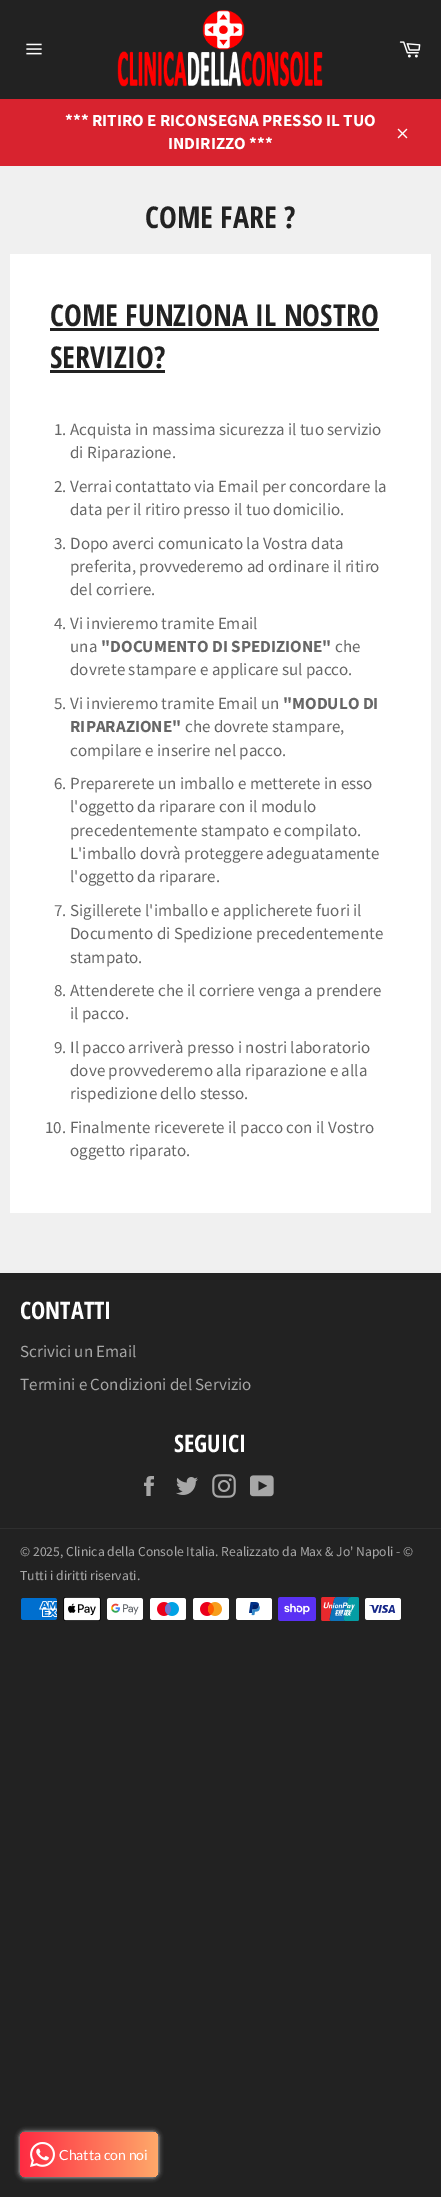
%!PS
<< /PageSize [441 2197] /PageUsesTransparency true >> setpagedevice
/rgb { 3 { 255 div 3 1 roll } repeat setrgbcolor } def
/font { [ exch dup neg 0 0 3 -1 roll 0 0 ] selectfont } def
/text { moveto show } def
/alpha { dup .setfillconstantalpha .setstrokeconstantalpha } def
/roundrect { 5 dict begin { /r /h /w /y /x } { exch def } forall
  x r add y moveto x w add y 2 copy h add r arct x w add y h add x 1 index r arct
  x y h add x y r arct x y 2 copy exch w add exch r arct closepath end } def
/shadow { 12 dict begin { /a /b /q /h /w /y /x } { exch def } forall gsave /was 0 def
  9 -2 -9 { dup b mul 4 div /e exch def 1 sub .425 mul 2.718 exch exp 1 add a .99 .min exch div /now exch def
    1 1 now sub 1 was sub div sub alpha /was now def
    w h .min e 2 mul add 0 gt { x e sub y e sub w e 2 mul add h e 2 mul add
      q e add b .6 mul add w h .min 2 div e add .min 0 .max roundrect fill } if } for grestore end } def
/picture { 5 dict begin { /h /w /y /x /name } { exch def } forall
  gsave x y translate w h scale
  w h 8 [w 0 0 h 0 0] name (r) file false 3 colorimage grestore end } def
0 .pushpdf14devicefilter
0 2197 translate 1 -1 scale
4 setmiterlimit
34 34 34 rgb
0 0 441 2197 rectfill
240 240 240 rgb
0 166 441 1107 rectfill
(img_01.rgb) 26 43 16 12 picture
(img_02.rgb) 117 10 206 77 picture
(img_03.rgb) 399 41 22 17 picture
216 35 47 rgb
0 99 441 67 rectfill
(img_04.rgb) 397 128 11 11 picture
255 255 255 rgb
10 254 421 959 rectfill
34 34 34 rgb
50 328 329 3 rectfill
50 370 115 3 rectfill
(img_05.rgb) 144 1476 10 20 picture
(img_06.rgb) 176 1477 22 18 picture
(img_07.rgb) 212 1474 24 24 picture
(img_08.rgb) 250 1475 24 22 picture
47 47 47 rgb
0 1528 441 1 rectfill
(img_09.rgb) 21 1598 36 22 picture
(img_10.rgb) 63 1597 38 24 picture
(img_11.rgb) 107 1598 36 22 picture
(img_12.rgb) 150 1598 36 22 picture
(img_13.rgb) 193 1598 36 22 picture
(img_14.rgb) 236 1598 36 22 picture
(img_15.rgb) 278 1597 38 24 picture
(img_16.rgb) 321 1597 38 24 picture
(img_17.rgb) 365 1598 36 22 picture
211 211 211 rgb
20 2132 138 45 5 2.5 1 shadow
gsave 20 2132 138 45 5 roundrect clip newpath
<< /ShadingType 2 /ColorSpace /DeviceRGB /Coords [20 2155 158 2155] /Extend [true true] /Function << /FunctionType 2 /Domain [0 1] /C0 [0.996 0.169 0.259] /C1 [1 0.663 0.416] /N 1 >> >> shfill grestore
(img_18.rgb) 30 2142 25 25 picture
/SourceSansPro-Bold 17 font
255 255 255 rgb
(*** RITIRO E RICONSEGNA PRESSO IL TUO) 65 126 text
(INDIRIZZO ***) 168 149 text
/OpenSansCondensed-Bold 30 font
34 34 34 rgb
(COME FARE ?) 145 228 text
(COME FUNZIONA IL NOSTRO) 50 326 text
(SERVIZIO?) 50 368 text
/SourceSansPro-Regular 17 font
102 102 102 rgb
(1. Acquista in massima sicurezza il tuo servizio) 54 435 text
(di Riparazione.) 70 458 text
(2. Verrai contattato via Email per concordare la) 54 492 text
(data per il ritiro presso il tuo domicilio.) 70 515 text
(3. Dopo averci comunicato la Vostra data) 54 549 text
(preferita, provvederemo ad ordinare il ritiro) 70 572 text
(del corriere.) 70 595 text
(4. Vi invieremo tramite Email) 54 629 text
(una) 70 652 text
/SourceSansPro-Bold 17 font
("DOCUMENTO DI SPEDIZIONE") 101 652 text
/SourceSansPro-Regular 17 font
(che) 335 652 text
(dovrete stampare e applicare sul pacco.) 70 675 text
(5. Vi invieremo tramite Email un) 54 709 text
/SourceSansPro-Bold 17 font
("MODULO DI) 283 709 text
(RIPARAZIONE") 70 732 text
/SourceSansPro-Regular 17 font
(che dovrete stampare,) 185 732 text
(compilare e inserire nel pacco.) 70 756 text
(6. Preparerete un imballo e metterete in esso) 54 789 text
(l'oggetto da riparare con il modulo) 70 812 text
(precedentemente stampato e compilato.) 70 836 text
(L'imballo dovrà proteggere adeguatamente) 70 859 text
(l'oggetto da riparare.) 70 882 text
(7. Sigillerete l'imballo e applicherete fuori il) 54 916 text
(Documento di Spedizione precedentemente) 70 939 text
(stampato.) 70 963 text
(8. Attenderete che il corriere venga a prendere) 54 996 text
(il pacco.) 70 1019 text
(9. Il pacco arriverà presso i nostri laboratorio) 54 1053 text
(dove provvederemo alla riparazione e alla) 70 1076 text
(rispedizione dello stesso.) 70 1099 text
(10. Finalmente riceverete il pacco con il Vostro) 45 1133 text
(oggetto riparato.) 70 1156 text
/OpenSansCondensed-Bold 24 font
255 255 255 rgb
(CONTATTI) 20 1319 text
/SourceSansPro-Regular 17 font
167 167 167 rgb
(Scrivici un Email) 20 1357 text
(Termini e Condizioni del Servizio) 20 1390 text
/OpenSansCondensed-Bold 24 font
255 255 255 rgb
(SEGUICI) 174 1452 text
/SourceSansPro-Regular 13.6 font
167 167 167 rgb
(© 2025, Clinica della Console Italia. Realizzato da Max & Jo' Napoli - ©) 20 1556 text
(Tutti i diritti riservati.) 20 1580 text
/Lato-Regular 14 font
255 255 255 rgb
(Chatta con noi) 59 2160 text
.poppdf14devicefilter showpage
